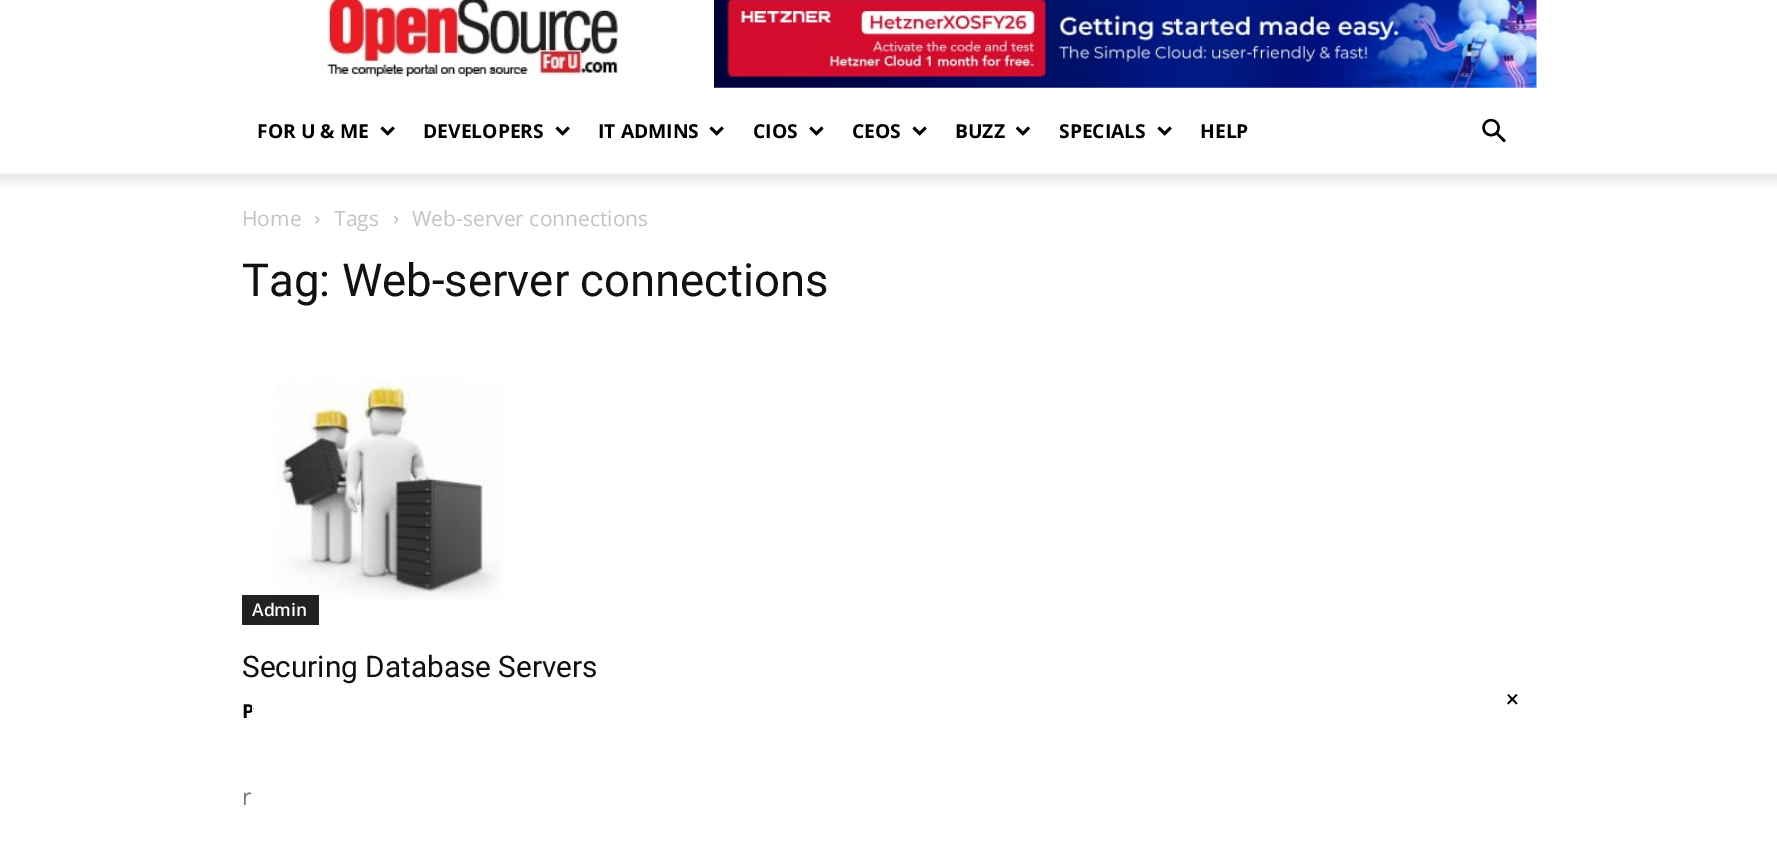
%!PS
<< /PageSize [1777 854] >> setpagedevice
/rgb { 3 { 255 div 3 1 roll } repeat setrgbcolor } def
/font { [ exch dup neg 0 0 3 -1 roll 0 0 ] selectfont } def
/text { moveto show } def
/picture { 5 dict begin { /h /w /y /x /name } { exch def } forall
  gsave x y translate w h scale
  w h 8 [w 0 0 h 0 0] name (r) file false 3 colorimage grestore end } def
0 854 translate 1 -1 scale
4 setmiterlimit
255 255 255 rgb
0 0 1777 854 rectfill
(img_01.rgb) 322 0 297 78 picture
(img_02.rgb) 714 0 823 88 picture
(img_03.rgb) 380 126 15 10 picture
(img_03.rgb) 555 126 15 10 picture
(img_03.rgb) 709 126 15 10 picture
(img_04.rgb) 809 126 15 10 picture
(img_03.rgb) 912 126 15 10 picture
(img_05.rgb) 1015 126 15 10 picture
(img_03.rgb) 1157 126 15 10 picture
(img_06.rgb) 1482 118 24 25 picture
(img_07.rgb) 0 173 1777 15 picture
(img_08.rgb) 315 215 5 9 picture
(img_09.rgb) 393 215 6 9 picture
(img_10.rgb) 275 379 228 221 picture
34 34 34 rgb
242 595 77 30 rectfill
/OpenSans-Bold 19.25 font
0 0 0 rgb
(FOR U & ME) 257 138 text
(DEVELOPERS) 423 138 text
(IT ADMINS) 598 138 text
(CIOS) 753 138 text
(CEOS) 852 138 text
(BUZZ) 955 138 text
(SPECIALS) 1059 138 text
(HELP) 1200 138 text
/OpenSans-Regular 21 font
195 195 195 rgb
(Home) 242 226 text
(Tags) 334 226 text
(Web-server connections) 412 226 text
/Roboto-Regular 45.5 font
17 17 17 rgb
(Tag: Web-server connections) 242 296 text
/OpenSans-SemiBold 17.5 font
255 255 255 rgb
(Admin) 252 616 text
/Roboto-Regular 29.75 font
17 17 17 rgb
(Securing Database Servers) 242 677 text
/OpenSans-Bold 19.25 font
0 0 0 rgb
(P) 242 718 text
/OpenSans-Regular 23 font
118 118 118 rgb
(r) 242 805 text
/Roboto-Regular 24 font
0 0 0 rgb
(×) 1506 707 text
255 255 255 rgb
252 706 1 5 rectfill
showpage
